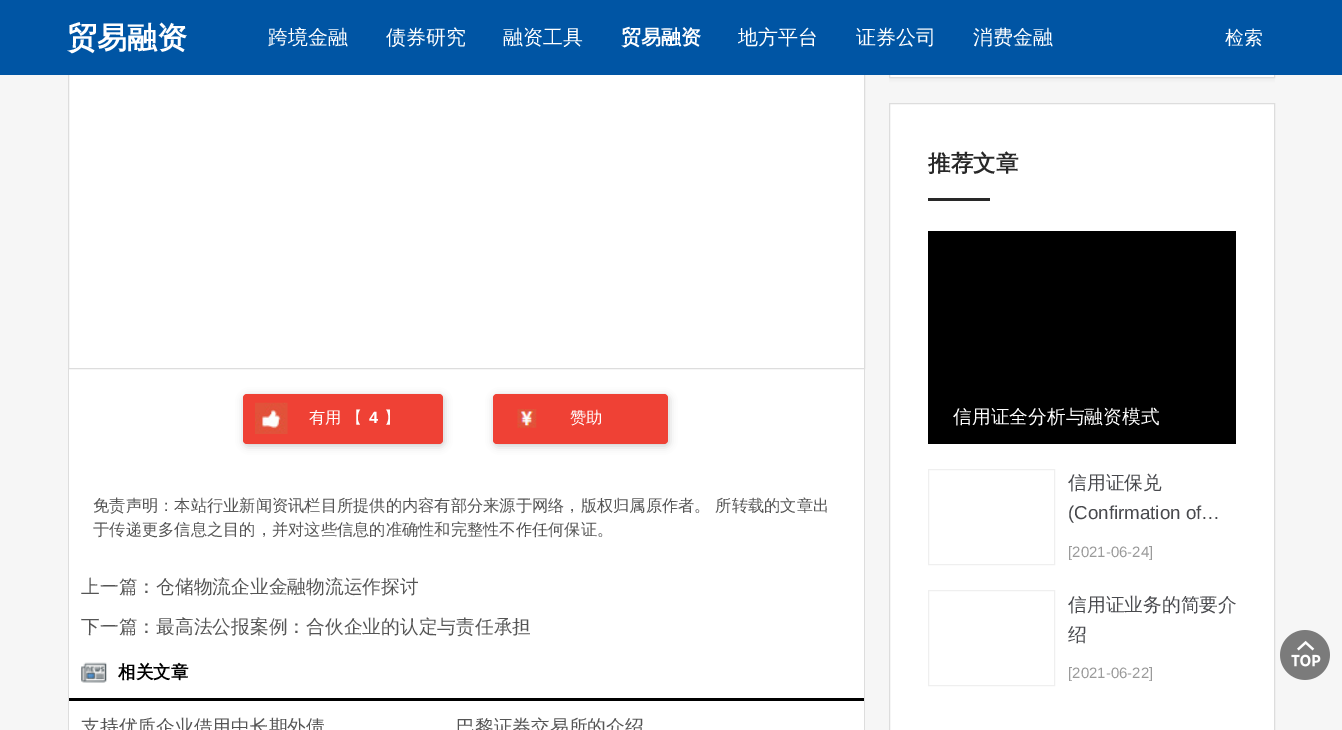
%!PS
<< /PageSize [1342 730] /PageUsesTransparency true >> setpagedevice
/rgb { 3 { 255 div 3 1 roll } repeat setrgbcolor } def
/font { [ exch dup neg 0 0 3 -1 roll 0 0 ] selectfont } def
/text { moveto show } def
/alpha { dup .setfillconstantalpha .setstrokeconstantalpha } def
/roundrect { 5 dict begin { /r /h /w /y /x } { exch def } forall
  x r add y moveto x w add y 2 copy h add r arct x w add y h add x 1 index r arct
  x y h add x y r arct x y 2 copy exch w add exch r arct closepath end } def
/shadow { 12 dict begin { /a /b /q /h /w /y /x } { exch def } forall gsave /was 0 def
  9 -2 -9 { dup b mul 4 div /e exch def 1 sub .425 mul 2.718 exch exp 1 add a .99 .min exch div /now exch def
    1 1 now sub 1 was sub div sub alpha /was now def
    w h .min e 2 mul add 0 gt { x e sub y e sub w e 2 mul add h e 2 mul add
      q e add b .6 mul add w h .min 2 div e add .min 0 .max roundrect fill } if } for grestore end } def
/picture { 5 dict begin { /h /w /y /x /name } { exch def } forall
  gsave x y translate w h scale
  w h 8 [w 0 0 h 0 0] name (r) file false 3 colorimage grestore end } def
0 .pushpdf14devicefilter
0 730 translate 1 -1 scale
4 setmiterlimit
246 246 246 rgb
0 0 1342 730 rectfill
255 255 255 rgb
69 75 795 655 rectfill
221 221 221 rgb
68.5 -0.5 796 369 rectstroke
gsave
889 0 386 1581 rectclip
146 146 146 rgb
889 -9 386 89 0 3 0.1 shadow
grestore
255 255 255 rgb
890 75 384 2 rectfill
221 221 221 rgb
889.5 -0.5 385 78 rectstroke
0 85 164 rgb
0 0 1342 75 rectfill
221 221 221 rgb
864 369 1 361 rectfill
68 369 1 361 rectfill
0 0 0 rgb
244 396 200 50 4 4 0.2 shadow
239 65 53 rgb
243 394 200 50 4 roundrect fill
(img_01.rgb) 255 402 33 32 picture
0 0 0 rgb
494 396 175 50 4 4 0.2 shadow
239 65 53 rgb
493 394 175 50 4 roundrect fill
(img_02.rgb) 517 409 20 19 picture
(img_03.rgb) 81 662 26 21 picture
0 0 0 rgb
69 698 795 3 rectfill
255 255 255 rgb
889.5 103.5 moveto 385 0 rlineto 0 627 rlineto -385 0 rlineto closepath gsave fill grestore
221 221 221 rgb
stroke
40 40 40 rgb
928 198 62 3 rectfill
0 0 0 rgb
928 231 308 213 rectfill
239 239 239 rgb
928.5 469.5 126 95 rectstroke
928.5 590.5 126 95 rectstroke
(img_04.rgb) 1280 630 50 50 picture
/WenQuanYiZenHei-Bold 30 font
255 255 255 rgb
(贸易融资) 67 48 text
/WenQuanYiZenHei-Medium 20 font
(跨境金融) 268 44 text
(债券研究) 386 44 text
(融资工具) 503 44 text
/WenQuanYiZenHei-Bold 20 font
(贸易融资) 621 44 text
/WenQuanYiZenHei-Medium 20 font
(地方平台) 738 44 text
(证券公司) 856 44 text
(消费金融) 973 44 text
/WenQuanYiZenHei-Medium 18.75 font
(检索) 1225 44 text
/WenQuanYiZenHei-Medium 16.25 font
(有用 【) 309 423 text
/LiberationSans-Bold 16.25 font
(4) 369 423 text
/WenQuanYiZenHei-Medium 16.25 font
(】) 384 423 text
(赞助) 570 423 text
85 85 85 rgb
(免责声明：本站行业新闻资讯栏目所提供的内容有部分来源于网络，版权归属原作者。 所转载的文章出) 93 511 text
(于传递更多信息之目的，并对这些信息的准确性和完整性不作任何保证。) 93 535 text
/WenQuanYiZenHei-Medium 18.75 font
(上一篇：仓储物流企业金融物流运作探讨) 81 593 text
(下一篇：最高法公报案例：合伙企业的认定与责任承担) 81 633 text
/WenQuanYiZenHei-Bold 17.5 font
0 0 0 rgb
(相关文章) 118 678 text
/WenQuanYiZenHei-Medium 18.75 font
85 85 85 rgb
(支持优质企业借用中长期外债) 81 733 text
(巴黎证券交易所的介绍) 456 733 text
/WenQuanYiZenHei-Bold 22.5 font
40 40 40 rgb
(推荐文章) 928 171 text
/WenQuanYiZenHei-Medium 18.75 font
255 255 255 rgb
(信用证全分析与融资模式) 953 423 text
72 73 77 rgb
(信用证保兑) 1068 489 text
/LiberationSans-Regular 18.75 font
(\(Confirmation of…) 1068 519 text
/LiberationSans-Regular 15 font
154 154 154 rgb
([2021-06-24]) 1068 557 text
/WenQuanYiZenHei-Medium 18.75 font
72 73 77 rgb
(信用证业务的简要介) 1068 611 text
(绍) 1068 641 text
/LiberationSans-Regular 15 font
154 154 154 rgb
([2021-06-22]) 1068 678 text
.poppdf14devicefilter showpage
